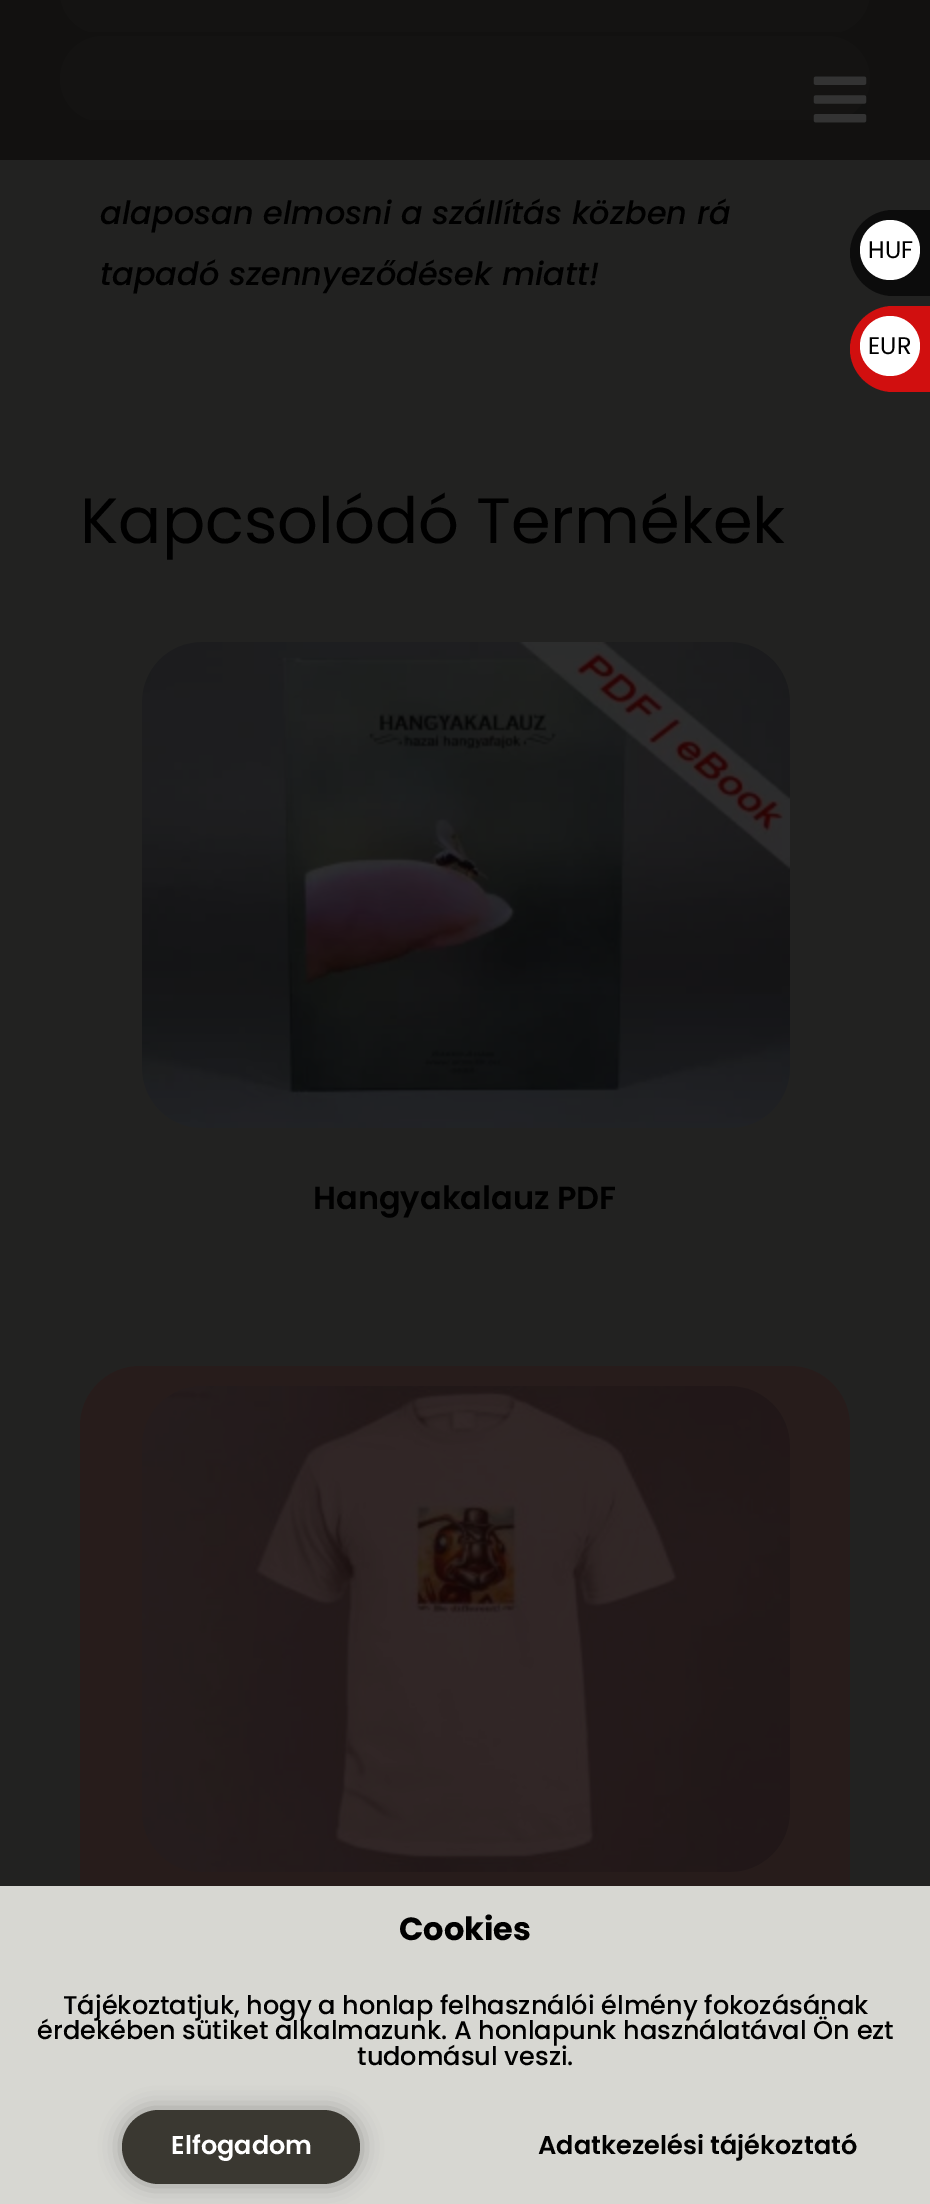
%!PS
<< /PageSize [930 2204] /PageUsesTransparency true >> setpagedevice
/rgb { 3 { 255 div 3 1 roll } repeat setrgbcolor } def
/font { [ exch dup neg 0 0 3 -1 roll 0 0 ] selectfont } def
/text { moveto show } def
/alpha { dup .setfillconstantalpha .setstrokeconstantalpha } def
/circle { newpath 0 360 arc closepath } def
/roundrect { 5 dict begin { /r /h /w /y /x } { exch def } forall
  x r add y moveto x w add y 2 copy h add r arct x w add y h add x 1 index r arct
  x y h add x y r arct x y 2 copy exch w add exch r arct closepath end } def
/shadow { 12 dict begin { /a /b /q /h /w /y /x } { exch def } forall gsave /was 0 def
  9 -2 -9 { dup b mul 4 div /e exch def 1 sub .425 mul 2.718 exch exp 1 add a .99 .min exch div /now exch def
    1 1 now sub 1 was sub div sub alpha /was now def
    w h .min e 2 mul add 0 gt { x e sub y e sub w e 2 mul add h e 2 mul add
      q e add b .6 mul add w h .min 2 div e add .min 0 .max roundrect fill } if } for grestore end } def
/picture { 5 dict begin { /h /w /y /x /name } { exch def } forall
  gsave x y translate w h scale
  w h 8 [w 0 0 h 0 0] name (r) file false 3 colorimage grestore end } def
0 .pushpdf14devicefilter
0 2204 translate 1 -1 scale
4 setmiterlimit
34 34 33 rgb
0 0 930 2204 rectfill
44 44 43 rgb
60 -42 810 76 42 roundrect fill
34 34 33 rgb
82 32 758 2 rectfill
44 44 43 rgb
60 36 810 86 43 roundrect fill
34 34 33 rgb
91 120 724 2 rectfill
0.75 alpha
12 11 10 rgb
0 0 930 160 rectfill
1 alpha
(img_01.rgb) 813 76 54 47 picture
(img_02.rgb) 142 642 648 486 picture
(img_03.rgb) 142 1386 648 486 picture
0.3 alpha
50 15 14 rgb
80 1366 770 634 60 roundrect fill
1 alpha
12 12 12 rgb
893 210 moveto 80 0 rlineto 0 86 rlineto -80 0 rlineto -23.5 0 -43 -19.5 -43 -43 rcurveto 0 -23.5 19.5 -43 43 -43 rcurveto closepath fill
255 255 255 rgb
890 250 30 circle fill
209 15 15 rgb
893 306 moveto 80 0 rlineto 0 86 rlineto -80 0 rlineto -23.5 0 -43 -19.5 -43 -43 rcurveto 0 -23.5 19.5 -43 43 -43 rcurveto closepath fill
255 255 255 rgb
890 346 30 circle fill
215 215 210 rgb
0 1886 930 204 rectfill
0 2090 930 114 rectfill
0 0 0 rgb
120 2108 242 78 39 10 0.25 shadow
58 56 49 rgb
122 2110 238 74 37 roundrect fill
/Poppins-MediumItalic 32 font
0 0 0 rgb
(alaposan elmosni a szállítás közben rá) 100 224 text
(tapadó szennyeződések miatt!) 100 285 text
/Poppins-Regular 64 font
(Kapcsolódó Termékek) 80 543 text
/Poppins-SemiBold 32 font
(Hangyakalauz PDF) 313 1209 text
/Poppins-Regular 24 font
(HUF) 868 258 text
(EUR) 868 354 text
/Poppins-Bold 32 font
(Cookies) 399 1940 text
/Poppins-Medium 25.6 font
(Tájékoztatjuk, hogy a honlap felhasználói élmény fokozásának) 63 2014 text
(érdekében sütiket alkalmazunk. A honlapunk használatával Ön ezt) 37 2039 text
(tudomásul veszi.) 357 2065 text
/Poppins-SemiBold 25.6 font
255 255 255 rgb
(Elfogadom) 171 2154 text
0 0 0 rgb
(Adatkezelési tájékoztató) 538 2154 text
.poppdf14devicefilter showpage
